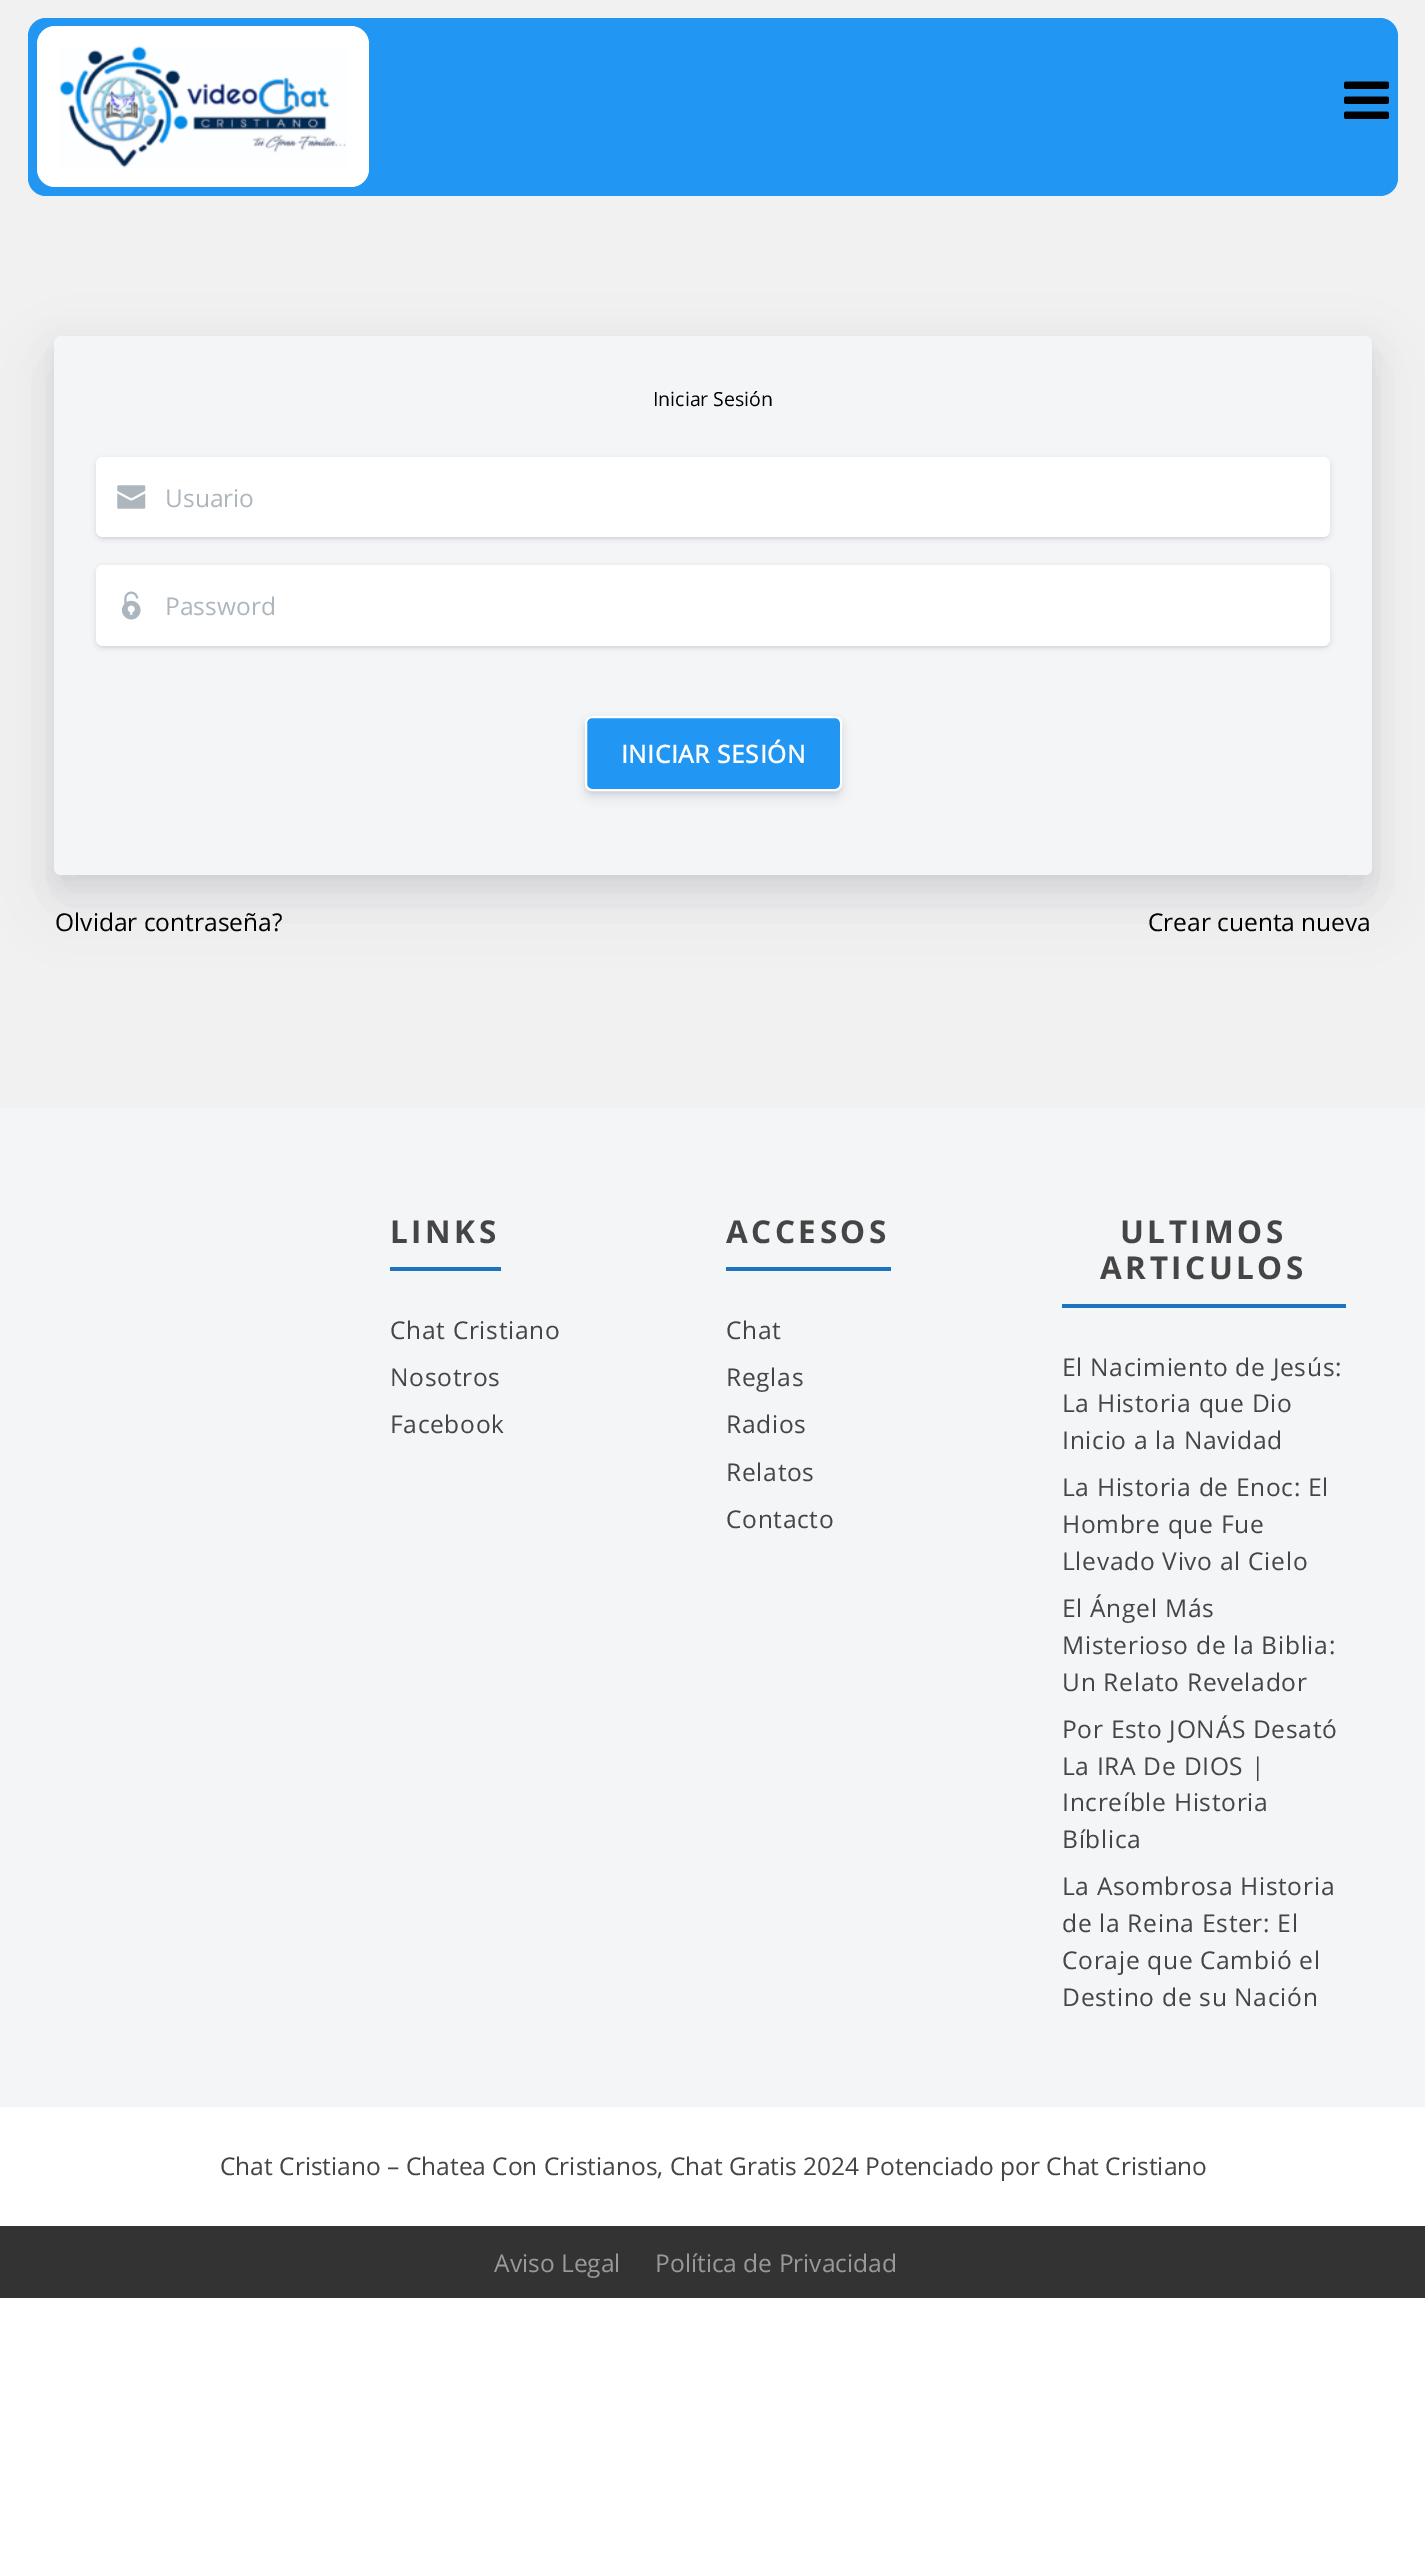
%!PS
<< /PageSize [1425 2554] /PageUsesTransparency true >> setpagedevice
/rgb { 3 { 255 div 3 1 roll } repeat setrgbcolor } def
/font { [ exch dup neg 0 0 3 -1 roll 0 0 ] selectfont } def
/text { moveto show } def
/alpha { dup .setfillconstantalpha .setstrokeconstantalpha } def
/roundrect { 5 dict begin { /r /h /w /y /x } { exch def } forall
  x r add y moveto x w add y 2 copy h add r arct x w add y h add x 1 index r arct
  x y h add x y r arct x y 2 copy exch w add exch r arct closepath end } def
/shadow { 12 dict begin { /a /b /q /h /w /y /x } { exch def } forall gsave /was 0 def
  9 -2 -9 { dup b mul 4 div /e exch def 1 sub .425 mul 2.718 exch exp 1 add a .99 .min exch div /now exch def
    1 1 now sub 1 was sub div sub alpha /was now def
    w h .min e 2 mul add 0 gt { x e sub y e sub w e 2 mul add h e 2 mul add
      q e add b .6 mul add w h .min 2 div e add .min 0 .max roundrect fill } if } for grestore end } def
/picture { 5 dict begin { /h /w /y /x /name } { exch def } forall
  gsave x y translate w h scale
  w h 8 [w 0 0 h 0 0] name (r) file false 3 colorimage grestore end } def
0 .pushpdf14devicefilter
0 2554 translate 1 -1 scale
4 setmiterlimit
255 255 255 rgb
0 0 1425 2554 rectfill
241 241 241 rgb
0 0 1425 1108 rectfill
33 150 243 rgb
28 18 1370 178 18 roundrect fill
255 255 255 rgb
37 26 332 161 18 roundrect fill
(img_01.rgb) 59 46 288 122 picture
(img_02.rgb) 1344 81 45 38 picture
0 0 0 rgb
54 345 1318 539 7 13 0.07 shadow
50 50 93 rgb
54 362 1318 539 7 30.5 0.1 shadow
244 245 247 rgb
54 336 1318 539 7 roundrect fill
239 240 242 rgb
96 464 moveto 0 57 rlineto 0 5 -2 18 7 18 rcurveto 1220 0 rlineto 5 0 7 -4 7 -9 rcurveto 0 4 -3 7 -7 7 rcurveto -1220 0 rlineto -4 0 -7 -3 -7 -7 rcurveto closepath fill
50 50 93 rgb
96 459 1234 80 7 2.5 0.15 shadow
255 255 255 rgb
103 457 moveto 63 0 rlineto 0 80 rlineto -63 0 rlineto -4 0 -7 -3 -7 -7 rcurveto 0 -66 rlineto 0 -4 3 -7 7 -7 rcurveto closepath fill
(img_03.rgb) 117 485 29 24 picture
165 457 moveto 1158 0 rlineto 4 0 7 3 7 7 rcurveto 0 66 rlineto 0 4 -3 7 -7 7 rcurveto -1158 0 rlineto closepath fill
239 240 242 rgb
96 572 moveto 0 58 rlineto 0 5 -2 18 7 18 rcurveto 1220 0 rlineto 5 0 7 -5 7 -9 rcurveto 0 4 -3 7 -7 7 rcurveto -1220 0 rlineto -4 0 -7 -3 -7 -7 rcurveto closepath fill
50 50 93 rgb
96 567 1234 81 7 2.5 0.15 shadow
255 255 255 rgb
103 565 moveto 63 0 rlineto 0 81 rlineto -63 0 rlineto -4 0 -7 -3 -7 -7 rcurveto 0 -67 rlineto 0 -4 3 -7 7 -7 rcurveto closepath fill
(img_04.rgb) 122 591 19 29 picture
165 565 moveto 1158 0 rlineto 4 0 7 3 7 7 rcurveto 0 67 rlineto 0 4 -3 7 -7 7 rcurveto -1158 0 rlineto closepath fill
0 0 0 rgb
585 718 257 75 7 2.5 0.08 shadow
50 50 93 rgb
585 723 257 75 7 5 0.11 shadow
33 150 243 rgb
586 717 255 73 6 roundrect gsave fill grestore
255 255 255 rgb
2 setlinewidth
stroke
244 245 247 rgb
0 1108 1425 999 rectfill
30 115 190 rgb
390 1267 111 4 rectfill
726 1267 165 4 rectfill
1062 1304 284 4 rectfill
51 51 51 rgb
0 2226 1425 72 rectfill
/OpenSans-Regular 19.5 font
0 0 0 rgb
(Iniciar Sesión) 653 406 text
/OpenSans-Regular 24.5 font
173 181 189 rgb
(Usuario) 165 507 text
(Password) 165 615 text
/OpenSans-Bold 24.5 font
255 255 255 rgb
621 763 moveto 0.6 0 (INICIAR SESIÓN) ashow
/OpenSans-Regular 24.5 font
0 0 0 rgb
(Olvidar contraseña?) 55 931 text
(Crear cuenta nueva) 1148 931 text
/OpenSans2-Bold 31.5 font
69 69 69 rgb
390 1243 moveto 3.5 0 (LINKS) ashow
/OpenSans-Regular 24.5 font
390 1339 moveto 0.7 0 (Chat Cristiano) ashow
390 1386 moveto 0.7 0 (Nosotros) ashow
390 1433 moveto 0.7 0 (Facebook) ashow
/OpenSans2-Bold 31.5 font
726 1243 moveto 3.5 0 (ACCESOS) ashow
/OpenSans-Regular 24.5 font
726 1339 moveto 0.7 0 (Chat) ashow
726 1386 moveto 0.7 0 (Reglas) ashow
726 1433 moveto 0.7 0 (Radios) ashow
726 1481 moveto 0.7 0 (Relatos) ashow
726 1528 moveto 0.7 0 (Contacto) ashow
/OpenSans2-Bold 31.5 font
1120 1243 moveto 3.5 0 (ULTIMOS) ashow
1100 1279 moveto 3.5 0 (ARTICULOS) ashow
/OpenSans-Regular 24.5 font
1062 1376 moveto 0.7 0 (El Nacimiento de Jesús:) ashow
1062 1412 moveto 0.7 0 (La Historia que Dio) ashow
1062 1449 moveto 0.7 0 (Inicio a la Navidad) ashow
1062 1496 moveto 0.7 0 (La Historia de Enoc: El) ashow
1062 1533 moveto 0.7 0 (Hombre que Fue) ashow
1062 1570 moveto 0.7 0 (Llevado Vivo al Cielo) ashow
1062 1617 moveto 0.7 0 (El Ángel Más) ashow
1062 1654 moveto 0.7 0 (Misterioso de la Biblia:) ashow
1062 1691 moveto 0.7 0 (Un Relato Revelador) ashow
1062 1738 moveto 0.7 0 (Por Esto JONÁS Desató) ashow
1062 1775 moveto 0.7 0 (La IRA De DIOS |) ashow
1062 1811 moveto 0.7 0 (Increíble Historia) ashow
1062 1848 moveto 0.7 0 (Bíblica) ashow
1062 1895 moveto 0.7 0 (La Asombrosa Historia) ashow
1062 1932 moveto 0.7 0 (de la Reina Ester: El) ashow
1062 1969 moveto 0.7 0 (Coraje que Cambió el) ashow
1062 2006 moveto 0.7 0 (Destino de su Nación) ashow
(Chat Cristiano – Chatea Con Cristianos, Chat Gratis 2024 Potenciado por Chat Cristiano) 220 2175 text
153 153 153 rgb
(Aviso Legal) 494 2272 text
(Política de Privacidad) 655 2272 text
.poppdf14devicefilter showpage
